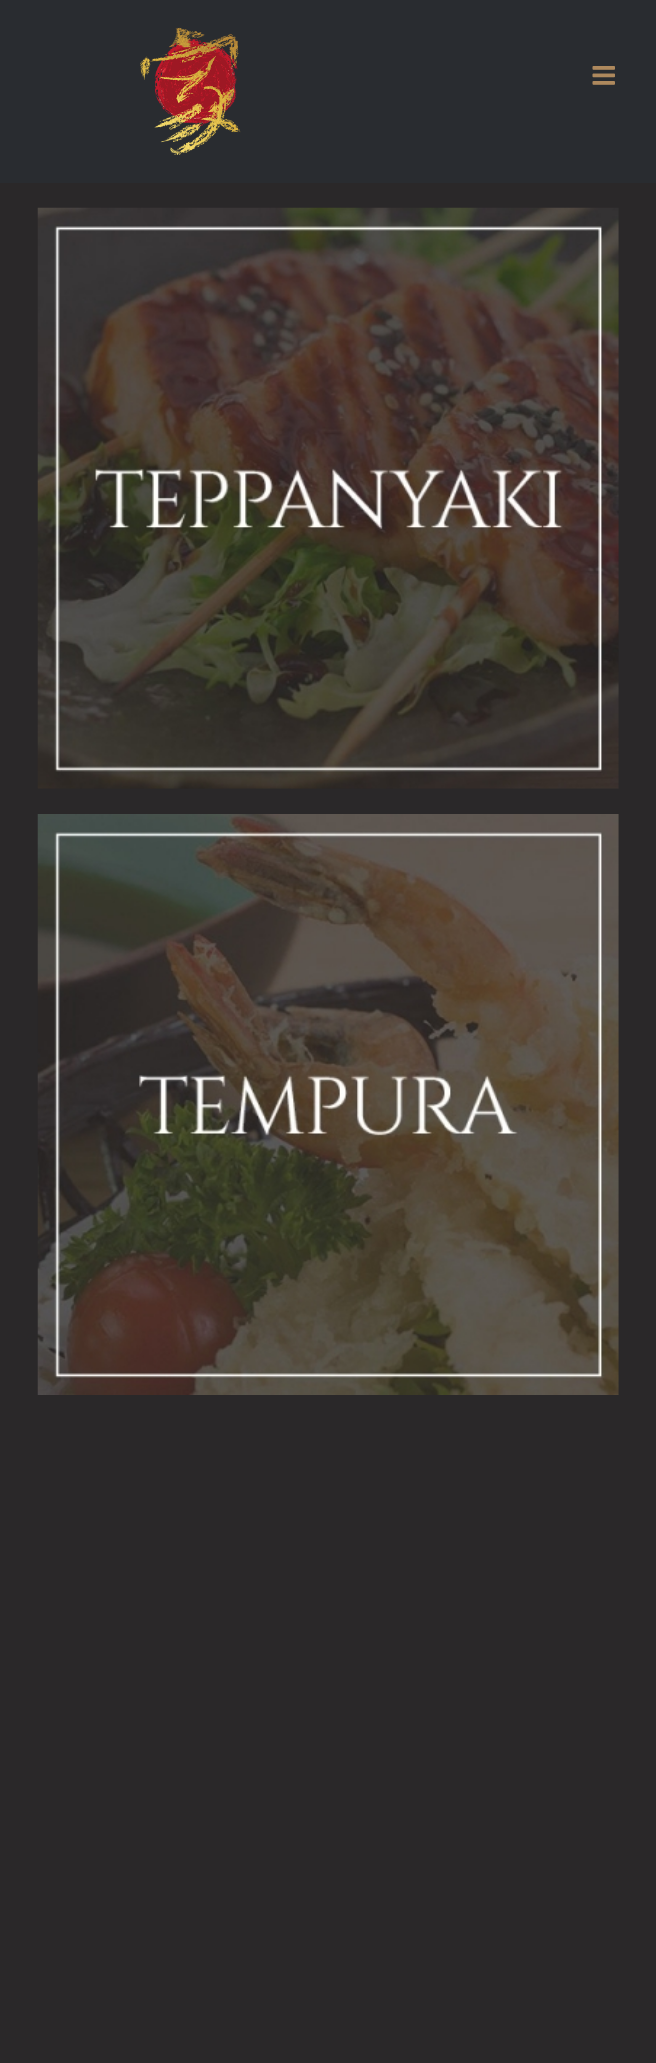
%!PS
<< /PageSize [656 2063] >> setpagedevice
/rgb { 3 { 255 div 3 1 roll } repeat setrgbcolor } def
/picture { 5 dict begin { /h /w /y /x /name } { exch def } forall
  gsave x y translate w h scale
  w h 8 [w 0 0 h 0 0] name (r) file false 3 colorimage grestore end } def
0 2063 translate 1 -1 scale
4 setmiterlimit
42 40 41 rgb
0 0 656 2063 rectfill
41 44 48 rgb
0 0 656 183 rectfill
(img_01.rgb) 140 27 101 128 picture
(img_02.rgb) 592 66 23 19 picture
(img_03.rgb) 37 207 582 582 picture
(img_04.rgb) 37 814 582 581 picture
showpage
